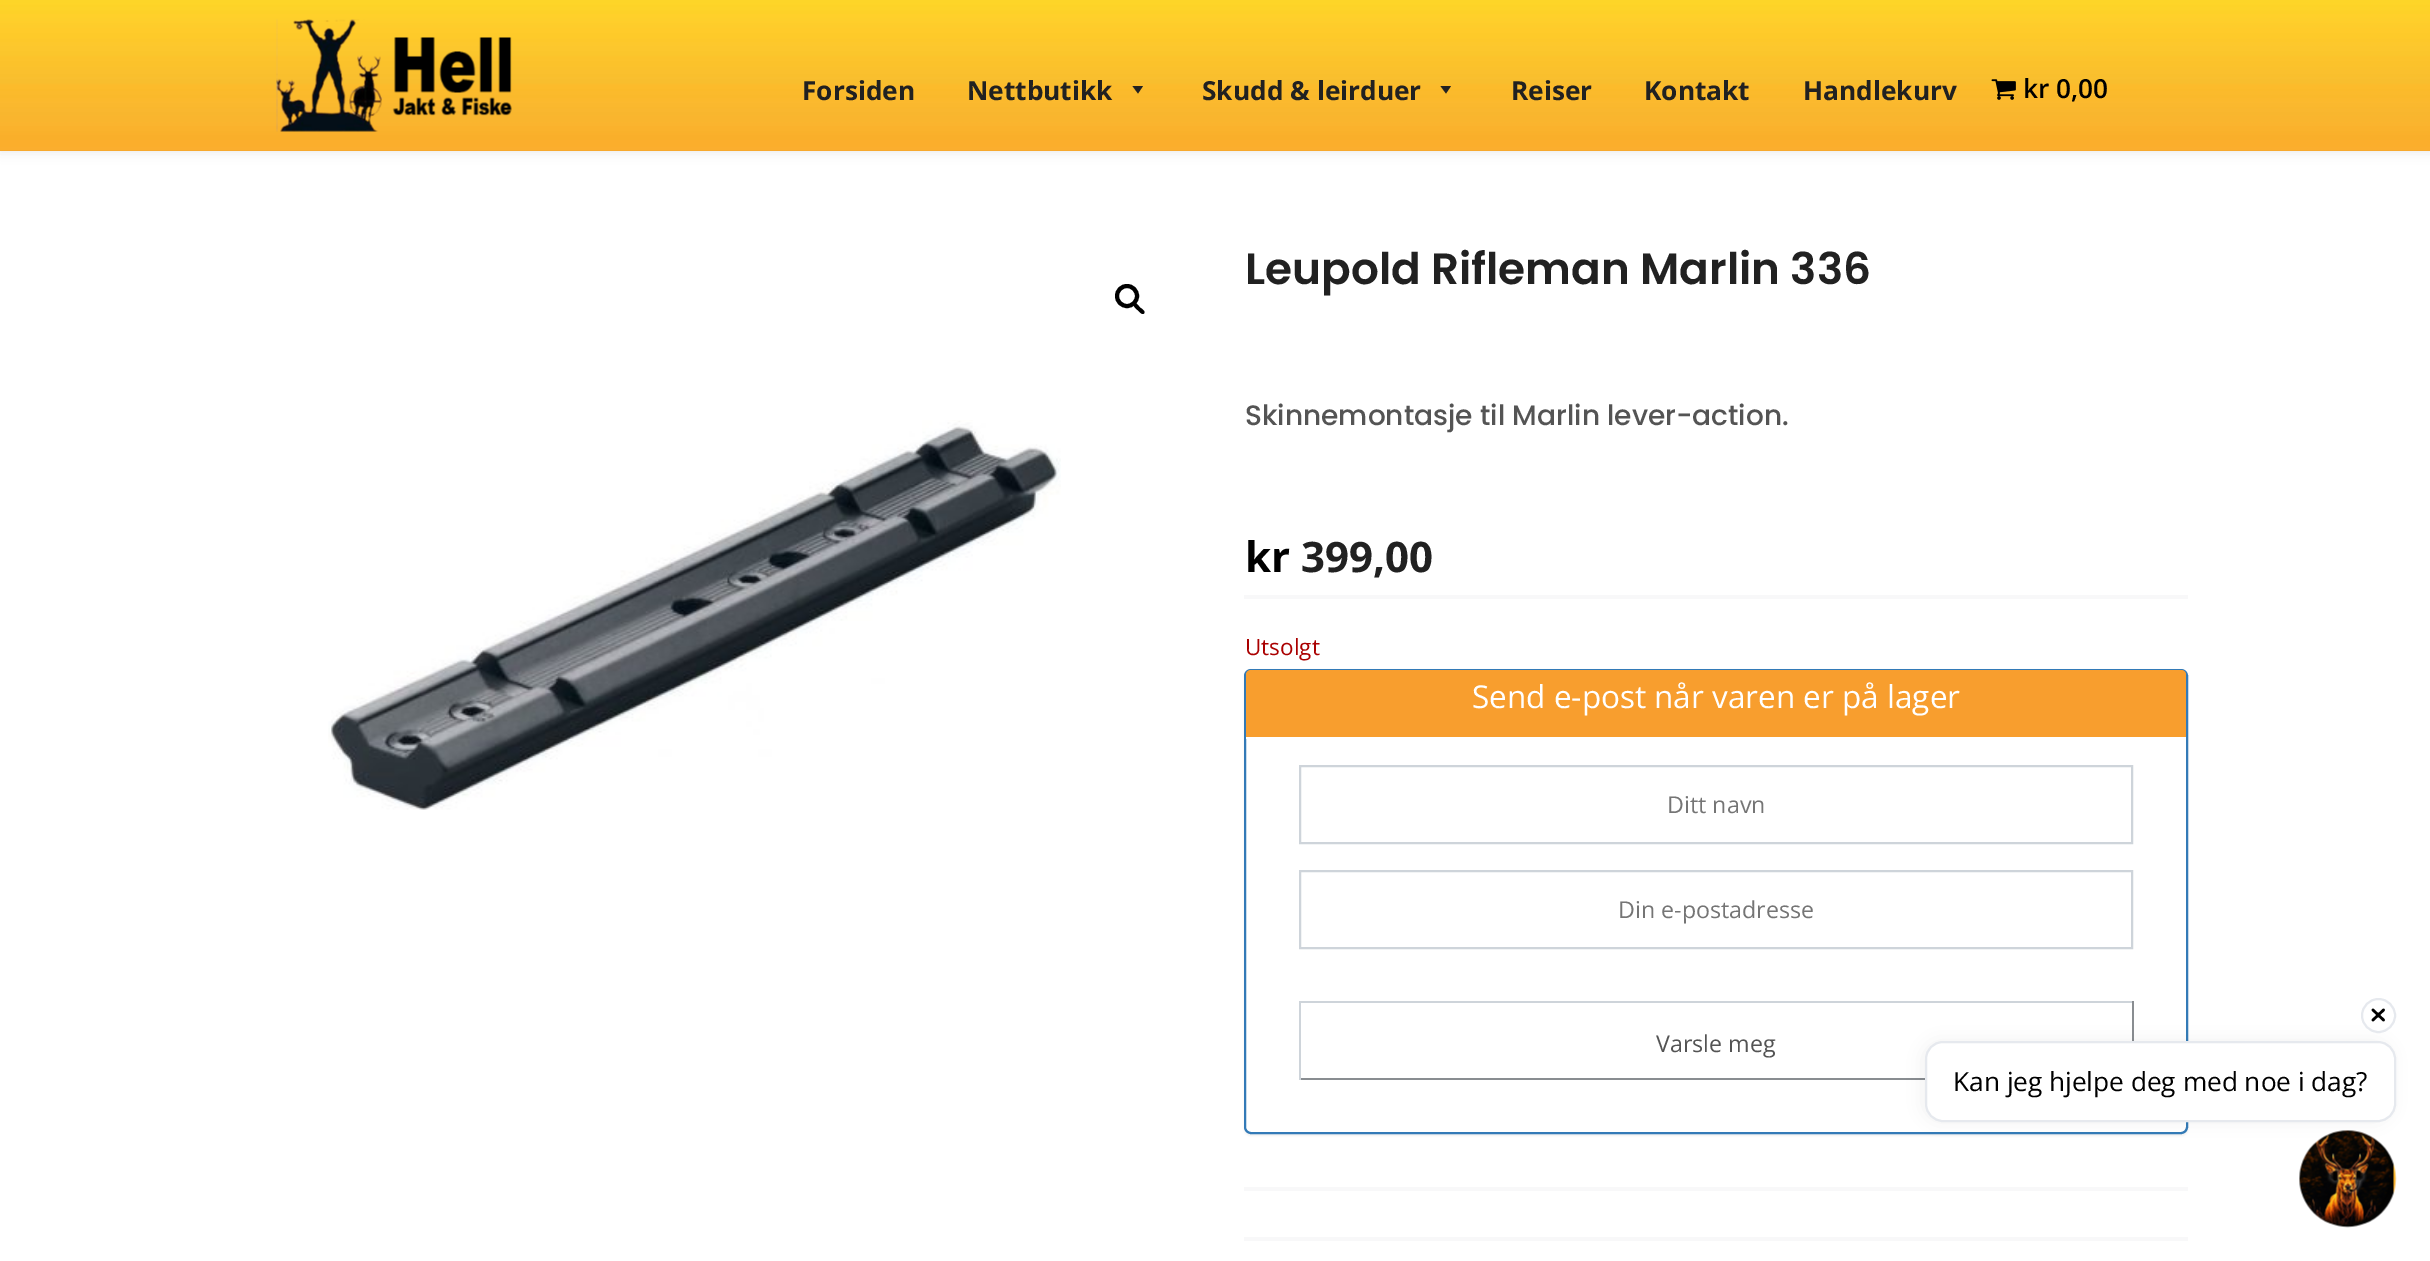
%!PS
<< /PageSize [2430 1261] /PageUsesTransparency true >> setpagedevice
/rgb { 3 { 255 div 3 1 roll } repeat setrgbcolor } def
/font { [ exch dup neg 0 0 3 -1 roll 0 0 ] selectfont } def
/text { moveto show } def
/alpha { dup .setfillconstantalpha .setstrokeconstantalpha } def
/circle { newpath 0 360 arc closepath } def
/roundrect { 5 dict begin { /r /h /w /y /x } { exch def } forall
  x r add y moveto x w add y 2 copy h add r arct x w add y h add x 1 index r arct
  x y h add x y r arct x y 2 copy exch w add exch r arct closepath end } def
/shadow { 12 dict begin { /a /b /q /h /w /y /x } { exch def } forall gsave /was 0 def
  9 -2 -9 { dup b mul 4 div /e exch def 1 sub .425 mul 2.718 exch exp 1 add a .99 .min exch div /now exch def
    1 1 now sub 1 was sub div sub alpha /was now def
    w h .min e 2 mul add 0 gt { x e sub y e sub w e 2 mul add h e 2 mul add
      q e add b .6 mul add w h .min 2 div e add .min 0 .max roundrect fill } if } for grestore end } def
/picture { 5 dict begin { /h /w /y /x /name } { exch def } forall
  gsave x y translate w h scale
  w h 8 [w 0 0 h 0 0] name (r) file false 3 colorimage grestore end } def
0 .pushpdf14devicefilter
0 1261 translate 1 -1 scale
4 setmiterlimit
255 255 255 rgb
0 0 2430 1261 rectfill
0 0 0 rgb
0 0 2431 151 0 6 0.1 shadow
243 164 46 rgb
0 150 2430 1 rectfill
(img_01.rgb) 0 0 2430 151 picture
(img_02.rgb) 276 19 236 113 picture
34 34 34 rgb
1143 86 moveto -5 7.5 rlineto -5.5 -7.5 rlineto closepath fill
1451 86 moveto -5 7.5 rlineto -5.5 -7.5 rlineto closepath fill
(img_03.rgb) 1991 79 25 21 picture
0 0 0 rgb
4 setlinewidth
1127 296 10 circle stroke
1134 303.5 moveto 2 -2 5 3 6 4 rcurveto 1.5 1 6 4 4 6 rcurveto -2 2 -5 -2.5 -6.5 -3.5 rcurveto -1 -1 -5.5 -4.5 -3.5 -6.5 rcurveto closepath fill
(img_04.rgb) 328 420 733 390 picture
248 248 249 rgb
1244 595 944 4 rectfill
1244 1187 944 4 rectfill
gsave
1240 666 moveto 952 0 rlineto 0 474 rlineto -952 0 rlineto closepath 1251 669 moveto 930 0 rlineto 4 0 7 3 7 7 rcurveto 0 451 rlineto 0 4 -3 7 -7 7 rcurveto -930 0 rlineto -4 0 -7 -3 -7 -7 rcurveto 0 -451 rlineto 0 -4 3 -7 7 -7 rcurveto closepath eoclip newpath
0 0 0 rgb
1244 670 944 466 7 1 0.05 shadow
grestore
51 122 183 rgb
2 setlinewidth
1245 670 942 463 6 roundrect stroke
248 158 46 rgb
1251 670 moveto 930 0 rlineto 3 0 5 2 5 5 rcurveto 0 64 rlineto -940 0 rlineto 0 -64 rlineto 0 -3 2 -5 5 -5 rcurveto closepath fill
255 255 255 rgb
1246 737 940 2 rectfill
206 212 218 rgb
1300 766 832 77 rectstroke
1300 871 832 77 rectstroke
1299 1001 834 2 rectfill
137 141 145 rgb
2132 1001 2 40 rectfill
1299 1078 626 2 rectfill
206 212 218 rgb
1299 1001 2 79 rectfill
248 248 249 rgb
1244 1237 944 4 rectfill
(img_05.rgb) 2299 1130 98 98 picture
0 0 0 rgb
1922 1041 470 81 18 9 0.05 shadow
230 233 238 rgb
2378.5 1015.5 16.5 circle stroke
0 0 0 rgb
2.6 setlinewidth
1 setlinecap
1 setlinejoin
2373 1020 moveto 10.5 -10 rlineto 2373 1010 moveto 10.5 10 rlineto stroke
255 255 255 rgb
1926 1042 469 79 17 roundrect gsave fill grestore
230 233 238 rgb
2 setlinewidth
0 setlinecap
0 setlinejoin
stroke
/OpenSans-Bold 26.25 font
33 33 33 rgb
(Forsiden) 802 100 text
(Nettbutikk) 967 100 text
(Skudd & leirduer) 1202 100 text
(Reiser) 1511 100 text
(Kontakt) 1644 100 text
(Handlekurv) 1803 100 text
/OpenSans-SemiBold 26.25 font
0 0 0 rgb
(kr 0,00) 2023 98 text
/Poppins-SemiBold 43.75 font
33 33 33 rgb
(Leupold Rifleman Marlin 336) 1245 284 text
/Poppins-Medium 28 font
84 84 84 rgb
(Skinnemontasje til Marlin lever-action.) 1245 425 text
/OpenSans-Bold 42 font
0 0 0 rgb
(kr) 1245 572 text
33 33 33 rgb
(399,00) 1301 572 text
/OpenSans-Regular 22.5 font
170 0 0 rgb
(Utsolgt) 1245 655 text
/OpenSans-Regular 31.5 font
255 255 255 rgb
(Send e-post når varen er på lager) 1472 708 text
/OpenSans-Regular 23.25 font
117 117 117 rgb
(Ditt navn) 1667 813 text
(Din e-postadresse) 1618 918 text
84 84 84 rgb
(Varsle meg) 1656 1052 text
/OpenSans-Regular 26.25 font
0 0 0 rgb
(Kan jeg hjelpe deg med noe i dag?) 1953 1091 text
.poppdf14devicefilter showpage
